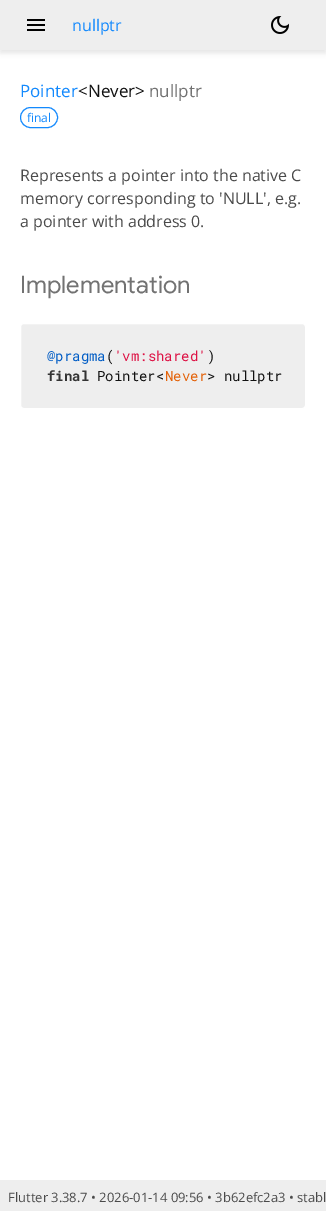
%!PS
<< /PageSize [326 1211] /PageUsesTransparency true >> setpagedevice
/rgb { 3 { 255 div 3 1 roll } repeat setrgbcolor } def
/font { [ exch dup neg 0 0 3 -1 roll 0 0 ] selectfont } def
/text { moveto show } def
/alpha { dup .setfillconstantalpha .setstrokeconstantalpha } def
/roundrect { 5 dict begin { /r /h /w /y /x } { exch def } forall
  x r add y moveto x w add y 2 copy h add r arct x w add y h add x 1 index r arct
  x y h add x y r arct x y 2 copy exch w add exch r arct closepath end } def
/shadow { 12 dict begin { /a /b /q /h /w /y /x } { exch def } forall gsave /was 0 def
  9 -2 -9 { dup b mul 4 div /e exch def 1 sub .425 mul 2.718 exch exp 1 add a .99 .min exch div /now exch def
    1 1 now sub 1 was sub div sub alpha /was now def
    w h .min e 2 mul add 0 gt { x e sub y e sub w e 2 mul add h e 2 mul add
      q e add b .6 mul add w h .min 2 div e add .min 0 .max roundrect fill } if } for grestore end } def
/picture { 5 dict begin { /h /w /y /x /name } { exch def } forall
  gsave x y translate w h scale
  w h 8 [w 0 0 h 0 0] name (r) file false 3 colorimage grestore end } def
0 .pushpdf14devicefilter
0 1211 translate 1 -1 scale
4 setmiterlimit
255 255 255 rgb
0 0 326 1211 rectfill
0 0 0 rgb
0 3 326 50 0 2.5 0.1 shadow
238 238 238 rgb
0 0 326 50 rectfill
(img_01.rgb) 27 19 18 12 picture
(img_02.rgb) 271 16 18 18 picture
19 137 253 rgb
20.5 107.5 37 20 10 roundrect stroke
238 238 238 rgb
20.5 323.5 285 85 3.5 roundrect gsave fill grestore
255 255 255 rgb
stroke
238 238 238 rgb
0 1180 326 31 rectfill
/OpenSans-Regular 16 font
19 137 253 rgb
(nullptr) 72 31 text
/OpenSans-Regular 17 font
(Pointer) 20 97 text
17 17 17 rgb
(<Never>) 78 97 text
114 114 114 rgb
(nullptr) 149 97 text
/OpenSans-Regular 12 font
19 137 253 rgb
(final) 27 122 text
/OpenSans-Regular 16 font
74 74 74 rgb
(Represents a pointer into the native C) 20 181 text
(memory corresponding to 'NULL', e.g.) 20 204 text
(a pointer with address 0.) 20 227 text
/GoogleSans-Regular 24 font
114 114 114 rgb
(Implementation) 20 293 text
/RobotoMono-Regular 14 font
0 92 197 rgb
(@pragma) 47 361 text
17 17 17 rgb
(\() 106 361 text
221 17 68 rgb
('vm:shared') 114 361 text
17 17 17 rgb
(\)) 207 361 text
/RobotoMono-Bold 14 font
51 51 51 rgb
(final) 47 381 text
/RobotoMono-Regular 14 font
17 17 17 rgb
(Pointer<) 97 381 text
227 98 9 rgb
(Never) 165 381 text
17 17 17 rgb
(> nullptr) 207 381 text
/OpenSans-Regular 13 font
74 74 74 rgb
(Flutter 3.38.7 • 2026-01-14 09:56 • 3b62efc2a3 • stabl) 8 1202 text
.poppdf14devicefilter showpage
